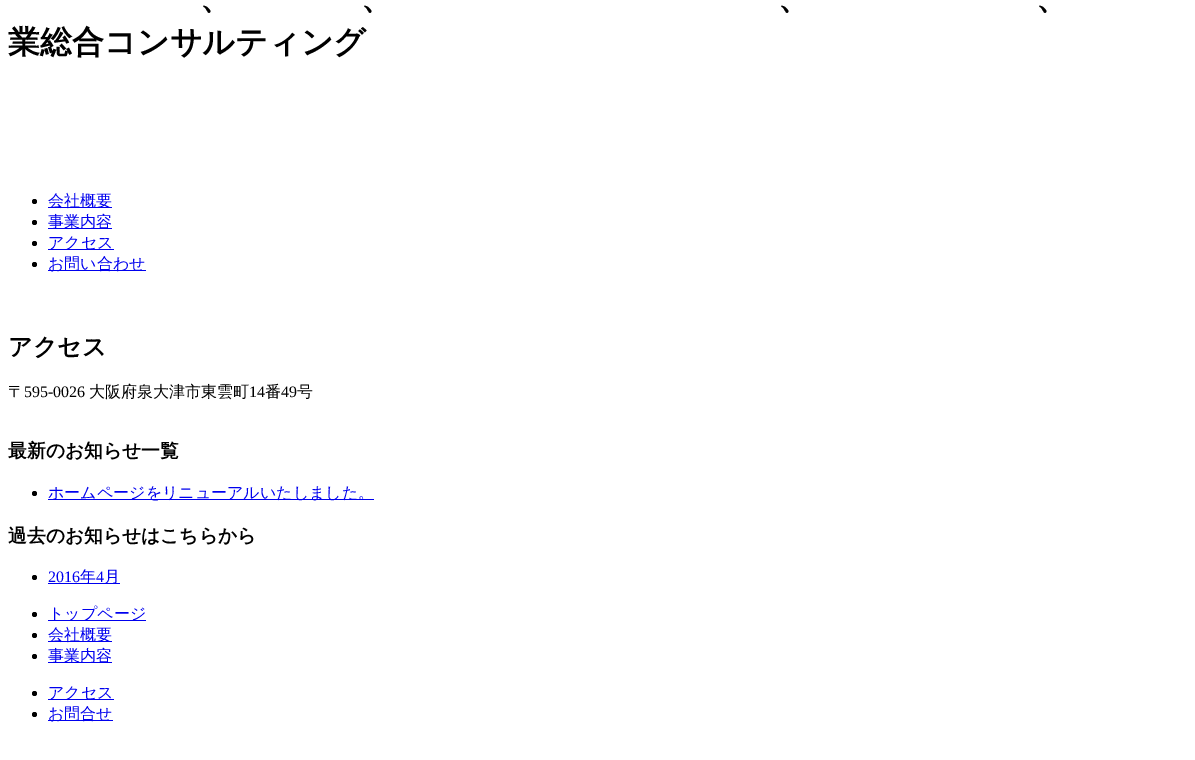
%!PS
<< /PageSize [1195 760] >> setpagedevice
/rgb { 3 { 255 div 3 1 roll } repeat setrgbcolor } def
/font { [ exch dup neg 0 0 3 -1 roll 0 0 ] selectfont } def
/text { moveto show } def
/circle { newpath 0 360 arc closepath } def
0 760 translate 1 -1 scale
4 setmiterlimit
255 255 255 rgb
0 0 1195 760 rectfill
0 0 0 rgb
34.5 201.5 2.5 circle fill
0 0 238 rgb
48 207 64 1 rectfill
0 0 0 rgb
34.5 222.5 2.5 circle fill
0 0 238 rgb
48 228 64 1 rectfill
0 0 0 rgb
34.5 243.5 2.5 circle fill
0 0 238 rgb
48 249 66 1 rectfill
0 0 0 rgb
34.5 264.5 2.5 circle fill
0 0 238 rgb
48 270 98 1 rectfill
0 0 0 rgb
34.5 493.5 2.5 circle fill
0 0 238 rgb
48 499 326 1 rectfill
0 0 0 rgb
34.5 577.5 2.5 circle fill
0 0 238 rgb
48 583 72 1 rectfill
0 0 0 rgb
34.5 614.5 2.5 circle fill
0 0 238 rgb
48 620 98 1 rectfill
0 0 0 rgb
34.5 635.5 2.5 circle fill
0 0 238 rgb
48 641 64 1 rectfill
0 0 0 rgb
34.5 656.5 2.5 circle fill
0 0 238 rgb
48 662 64 1 rectfill
0 0 0 rgb
34.5 693.5 2.5 circle fill
0 0 238 rgb
48 699 66 1 rectfill
0 0 0 rgb
34.5 714.5 2.5 circle fill
0 0 238 rgb
48 720 65 1 rectfill
/WenQuanYiZenHei-Bold 32 font
0 0 0 rgb
(、) 200 9 text
(、) 361 9 text
(、) 778 9 text
(、) 1036 9 text
(業総合コンサルティング) 8 53 text
/WenQuanYiZenHei-Medium 16 font
0 0 238 rgb
(会社概要) 48 206 text
(事業内容) 48 227 text
(アクセス) 48 248 text
(お問い合わせ) 48 269 text
/WenQuanYiZenHei-Bold 24 font
0 0 0 rgb
(アクセス) 8 355 text
/WenQuanYiZenHei-Medium 16 font
(〒) 8 397 text
/LiberationSerif-Regular 16 font
(595-0026) 24 397 text
/WenQuanYiZenHei-Medium 16 font
(大阪府泉大津市東雲町) 89 397 text
/LiberationSerif-Regular 16 font
(14) 249 397 text
/WenQuanYiZenHei-Medium 16 font
(番) 265 397 text
/LiberationSerif-Regular 16 font
(49) 281 397 text
/WenQuanYiZenHei-Medium 16 font
(号) 297 397 text
/WenQuanYiZenHei-Bold 18.75 font
(最新のお知らせ一覧) 8 457 text
/WenQuanYiZenHei-Medium 16 font
0 0 238 rgb
(ホームページをリニューアルいたしました。) 48 498 text
/WenQuanYiZenHei-Bold 18.75 font
0 0 0 rgb
(過去のお知らせはこちらから) 8 542 text
/LiberationSerif-Regular 16 font
0 0 238 rgb
(2016) 48 582 text
/WenQuanYiZenHei-Medium 16 font
(年) 80 582 text
/LiberationSerif-Regular 16 font
(4) 96 582 text
/WenQuanYiZenHei-Medium 16 font
(月) 104 582 text
(トップページ) 48 619 text
(会社概要) 48 640 text
(事業内容) 48 661 text
(アクセス) 48 698 text
(お問合せ) 48 719 text
showpage
